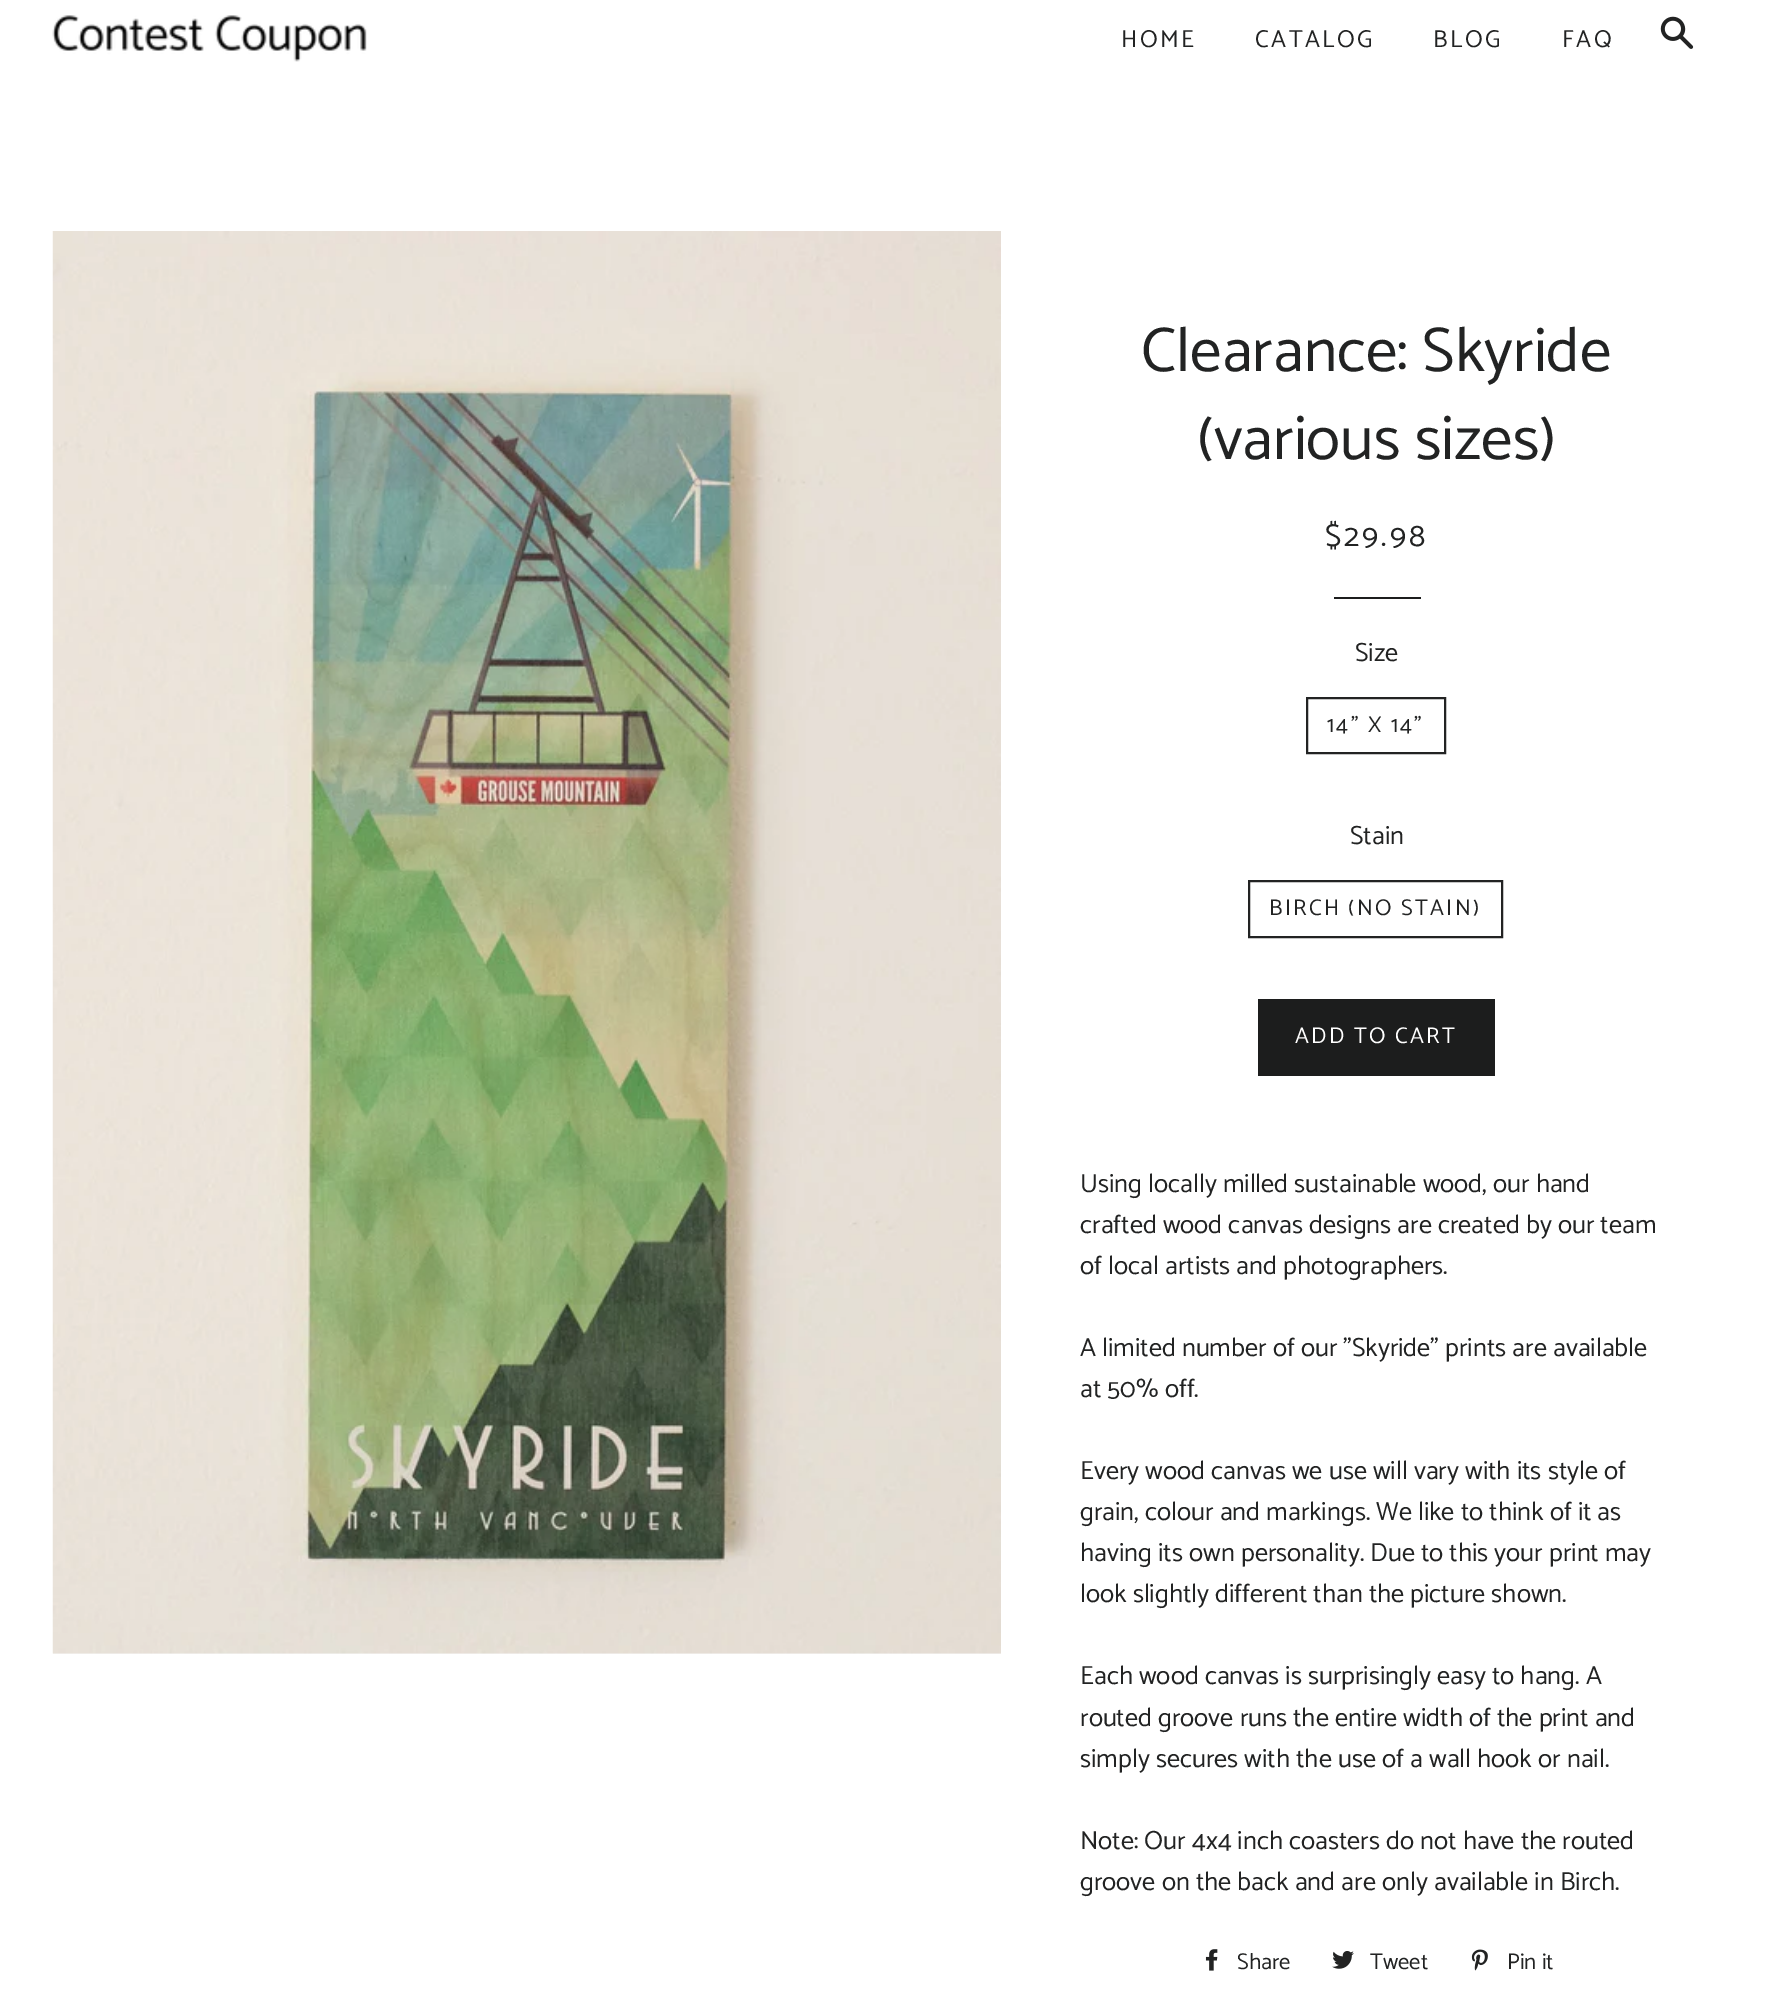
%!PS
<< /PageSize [1769 2015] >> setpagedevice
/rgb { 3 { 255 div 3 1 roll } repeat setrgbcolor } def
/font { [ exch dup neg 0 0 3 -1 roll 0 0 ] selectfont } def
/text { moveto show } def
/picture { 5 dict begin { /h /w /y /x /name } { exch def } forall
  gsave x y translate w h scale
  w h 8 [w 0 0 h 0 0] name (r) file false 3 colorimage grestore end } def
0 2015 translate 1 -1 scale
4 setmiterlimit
255 255 255 rgb
0 0 1769 2015 rectfill
(img_01.rgb) 52 15 315 47 picture
(img_02.rgb) 1660 16 34 33 picture
247 247 247 rgb
53 1653 948 1 rectfill
(img_03.rgb) 52 231 949 1423 picture
28 29 29 rgb
1334 597 87 2 rectfill
34 35 35 rgb
2 setlinewidth
1307 698 138 55 rectstroke
1249 881 253 56 rectstroke
28 29 29 rgb
1258 999 237 77 rectfill
(img_04.rgb) 1205 1949 13 22 picture
(img_05.rgb) 1332 1951 22 18 picture
(img_06.rgb) 1471 1949 17 22 picture
/Catamaran-Regular 24.5 font
34 35 35 rgb
1121 47 moveto 2.5 0 (HOME) ashow
1255 47 moveto 2.5 0 (CATALOG) ashow
1433 47 moveto 2.5 0 (BLOG) ashow
1562 47 moveto 2.5 0 (FAQ) ashow
/Catamaran-Regular 63 font
(Clearance: Skyride) 1141 371 text
(\(various sizes\)) 1197 459 text
/Catamaran-Regular 31.5 font
1325 546 moveto 3 0 ($29.98) ashow
/Catamaran-Regular 26.25 font
(Size) 1355 661 text
/Catamaran-Regular 22.75 font
1327 732 moveto 2.25 0 (14" X 14") ashow
/Catamaran-Regular 26.25 font
(Stain) 1350 844 text
/Catamaran-Regular 22.75 font
1269 915 moveto 2.25 0 (BIRCH \(NO STAIN\)) ashow
255 255 255 rgb
1295 1043 moveto 2.25 0 (ADD TO CART) ashow
/Catamaran-Regular 26.25 font
34 35 35 rgb
(Using locally milled sustainable wood, our hand) 1080 1192 text
(crafted wood canvas designs are created by our team) 1080 1233 text
(of local artists and photographers.) 1080 1274 text
(A limited number of our "Skyride" prints are available) 1080 1356 text
(at 50% off.) 1080 1397 text
(Every wood canvas we use will vary with its style of) 1080 1479 text
(grain, colour and markings. We like to think of it as) 1080 1520 text
(having its own personality. Due to this your print may) 1080 1561 text
(look slightly different than the picture shown.) 1080 1602 text
(Each wood canvas is surprisingly easy to hang. A) 1080 1684 text
(routed groove runs the entire width of the print and) 1080 1726 text
(simply secures with the use of a wall hook or nail.) 1080 1767 text
(Note: Our 4x4 inch coasters do not have the routed) 1080 1849 text
(groove on the back and are only available in Birch.) 1080 1890 text
/Catamaran-Regular 22.75 font
(Share) 1237 1969 text
(Tweet) 1370 1969 text
(Pin it) 1507 1969 text
showpage
